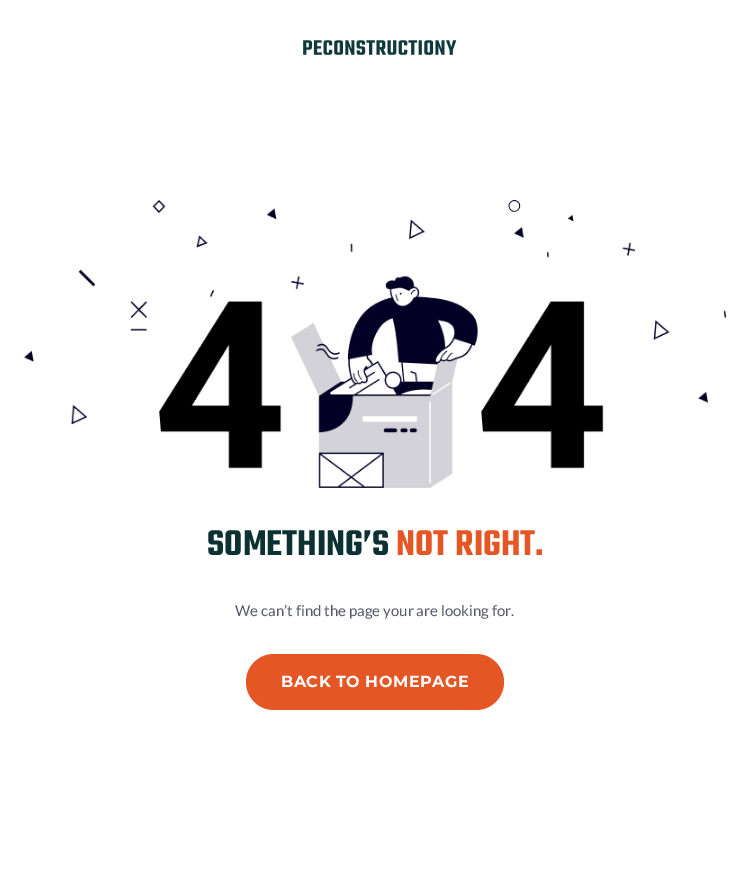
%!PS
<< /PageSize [750 883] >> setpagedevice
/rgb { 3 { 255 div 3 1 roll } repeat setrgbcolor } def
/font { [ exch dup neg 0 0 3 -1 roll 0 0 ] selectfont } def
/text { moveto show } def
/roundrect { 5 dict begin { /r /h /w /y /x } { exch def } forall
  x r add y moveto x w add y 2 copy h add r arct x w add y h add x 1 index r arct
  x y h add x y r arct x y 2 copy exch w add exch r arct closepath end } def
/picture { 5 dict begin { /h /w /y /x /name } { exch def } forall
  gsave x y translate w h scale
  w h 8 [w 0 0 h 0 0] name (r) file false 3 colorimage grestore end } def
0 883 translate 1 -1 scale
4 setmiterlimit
255 255 255 rgb
0 0 750 883 rectfill
(img_01.rgb) 303 40 153 15 picture
(img_02.rgb) 24 200 702 288 picture
229 86 37 rgb
246 654 258 56 28 roundrect fill
/Teko-SemiBold 39 font
12 49 51 rgb
(SOMETHING’S) 207 555 text
229 86 37 rgb
(NOT RIGHT.) 396 555 text
/Lato-Regular 15 font
86 89 105 rgb
(We can’t find the page your are looking for.) 235 616 text
/Montserrat-Bold 16 font
255 255 255 rgb
281 687 moveto 0.5 0 (BACK TO HOMEPAGE) ashow
showpage
